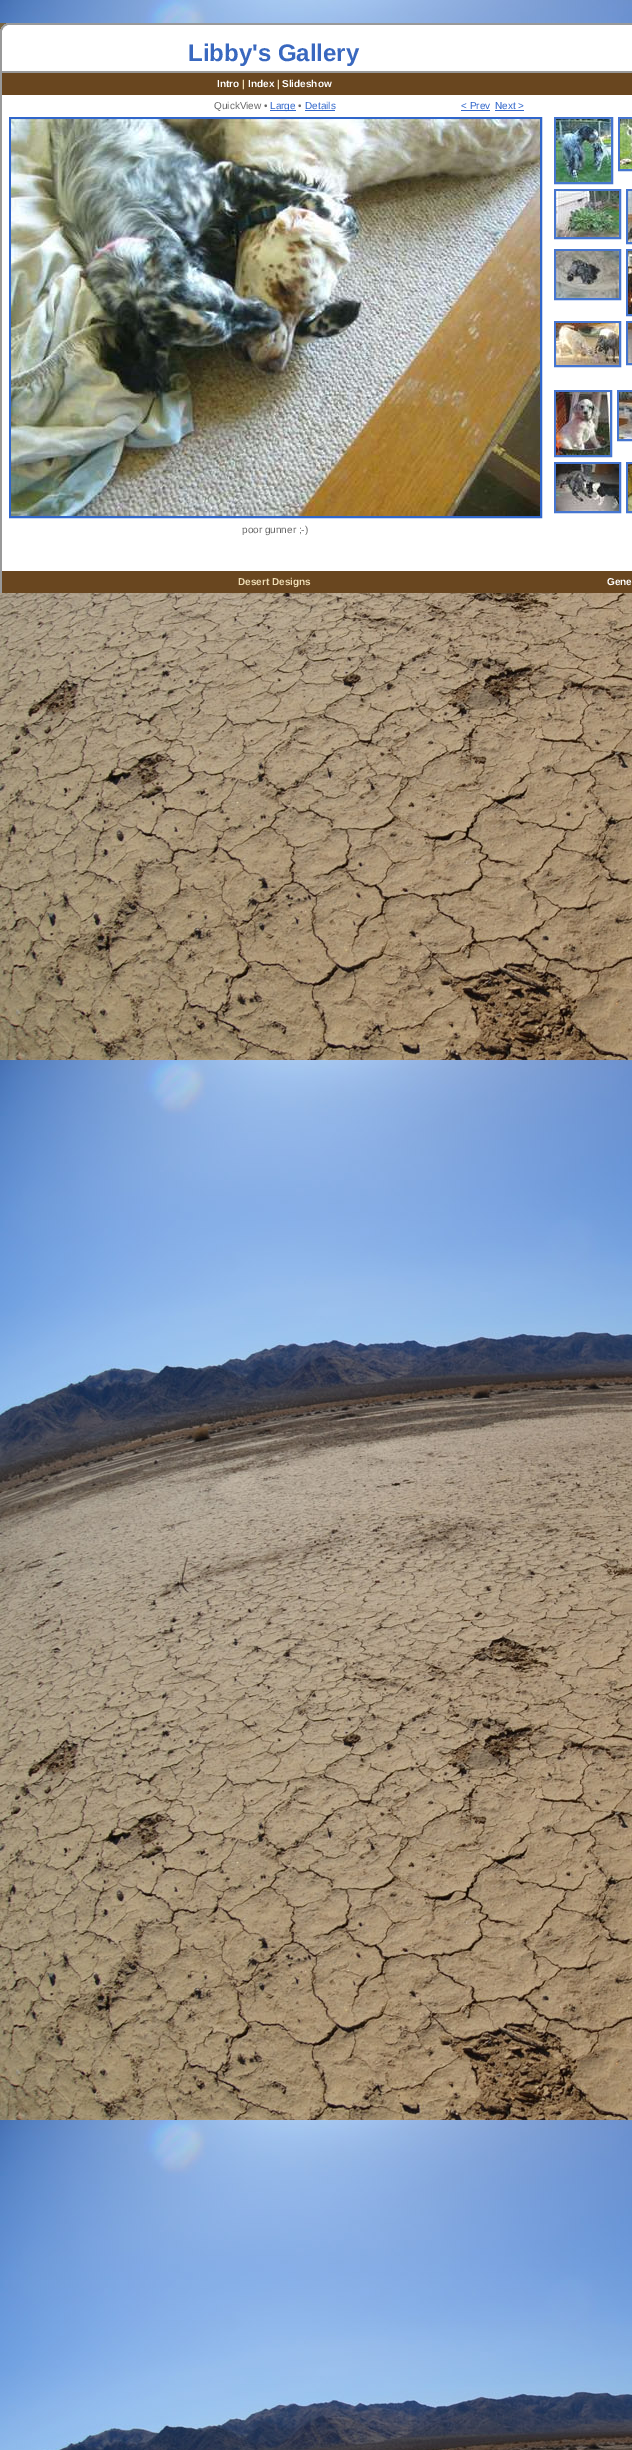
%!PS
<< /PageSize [632 2450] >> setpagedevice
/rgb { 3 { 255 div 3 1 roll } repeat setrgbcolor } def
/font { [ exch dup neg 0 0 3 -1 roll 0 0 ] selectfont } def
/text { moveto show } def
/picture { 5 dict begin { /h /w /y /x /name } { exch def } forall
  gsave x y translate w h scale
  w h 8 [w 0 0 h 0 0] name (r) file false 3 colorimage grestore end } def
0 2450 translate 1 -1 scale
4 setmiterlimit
255 255 255 rgb
0 0 632 2450 rectfill
(img_01.rgb) 0 0 632 2450 picture
118 100 67 rgb
0 23 6 6 rectfill
(img_02.rgb) 0 23 632 50 picture
255 255 255 rgb
2 95 630 476 rectfill
153 153 153 rgb
0 73 2 520 rectfill
105 70 31 rgb
2 73 630 22 rectfill
48 102 203 rgb
270 110 26 1 rectfill
305 110 30 1 rectfill
461 110 29 1 rectfill
495 110 29 1 rectfill
2 setlinewidth
10 118 531 399 rectstroke
(img_03.rgb) 11 119 529 397 picture
69 117 208 rgb
555 118 57 65 rectstroke
619 118 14 52 rectstroke
(img_04.rgb) 556 119 55 63 picture
(img_05.rgb) 620 119 12 50 picture
555 190 65 48 rectstroke
627 190 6 53 rectstroke
(img_06.rgb) 556 191 63 46 picture
(img_07.rgb) 628 191 4 51 picture
555 250 65 49 rectstroke
627 250 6 65 rectstroke
(img_08.rgb) 556 251 63 47 picture
(img_09.rgb) 628 251 4 63 picture
555 322 65 44 rectstroke
627 322 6 42 rectstroke
(img_10.rgb) 556 323 63 42 picture
(img_11.rgb) 628 323 4 40 picture
555 391 56 65 rectstroke
618 391 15 49 rectstroke
(img_12.rgb) 556 392 54 63 picture
(img_13.rgb) 619 392 13 47 picture
555 463 65 49 rectstroke
627 463 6 49 rectstroke
(img_14.rgb) 556 464 63 47 picture
(img_15.rgb) 628 464 4 47 picture
105 70 31 rgb
2 571 630 22 rectfill
/LiberationSans-Bold 24 font
57 104 191 rgb
(Libby's Gallery) 188 61 text
/LiberationSans-Bold 10 font
255 255 255 rgb
(Intro) 217 87 text
239 222 182 rgb
(|) 242 87 text
255 255 255 rgb
(Index) 248 87 text
239 222 182 rgb
(|) 277 87 text
255 255 255 rgb
(Slideshow) 282 87 text
/LiberationSans-Regular 10 font
102 102 102 rgb
(QuickView •) 214 109 text
48 102 203 rgb
(Large) 270 109 text
102 102 102 rgb
(•) 298 109 text
48 102 203 rgb
(Details) 305 109 text
(< Prev) 461 109 text
(Next >) 495 109 text
102 102 102 rgb
(poor gunner ;-\)) 242 533 text
/LiberationSans-Bold 10 font
239 222 182 rgb
(Desert Designs) 238 585 text
255 255 255 rgb
(Gene) 607 585 text
showpage
